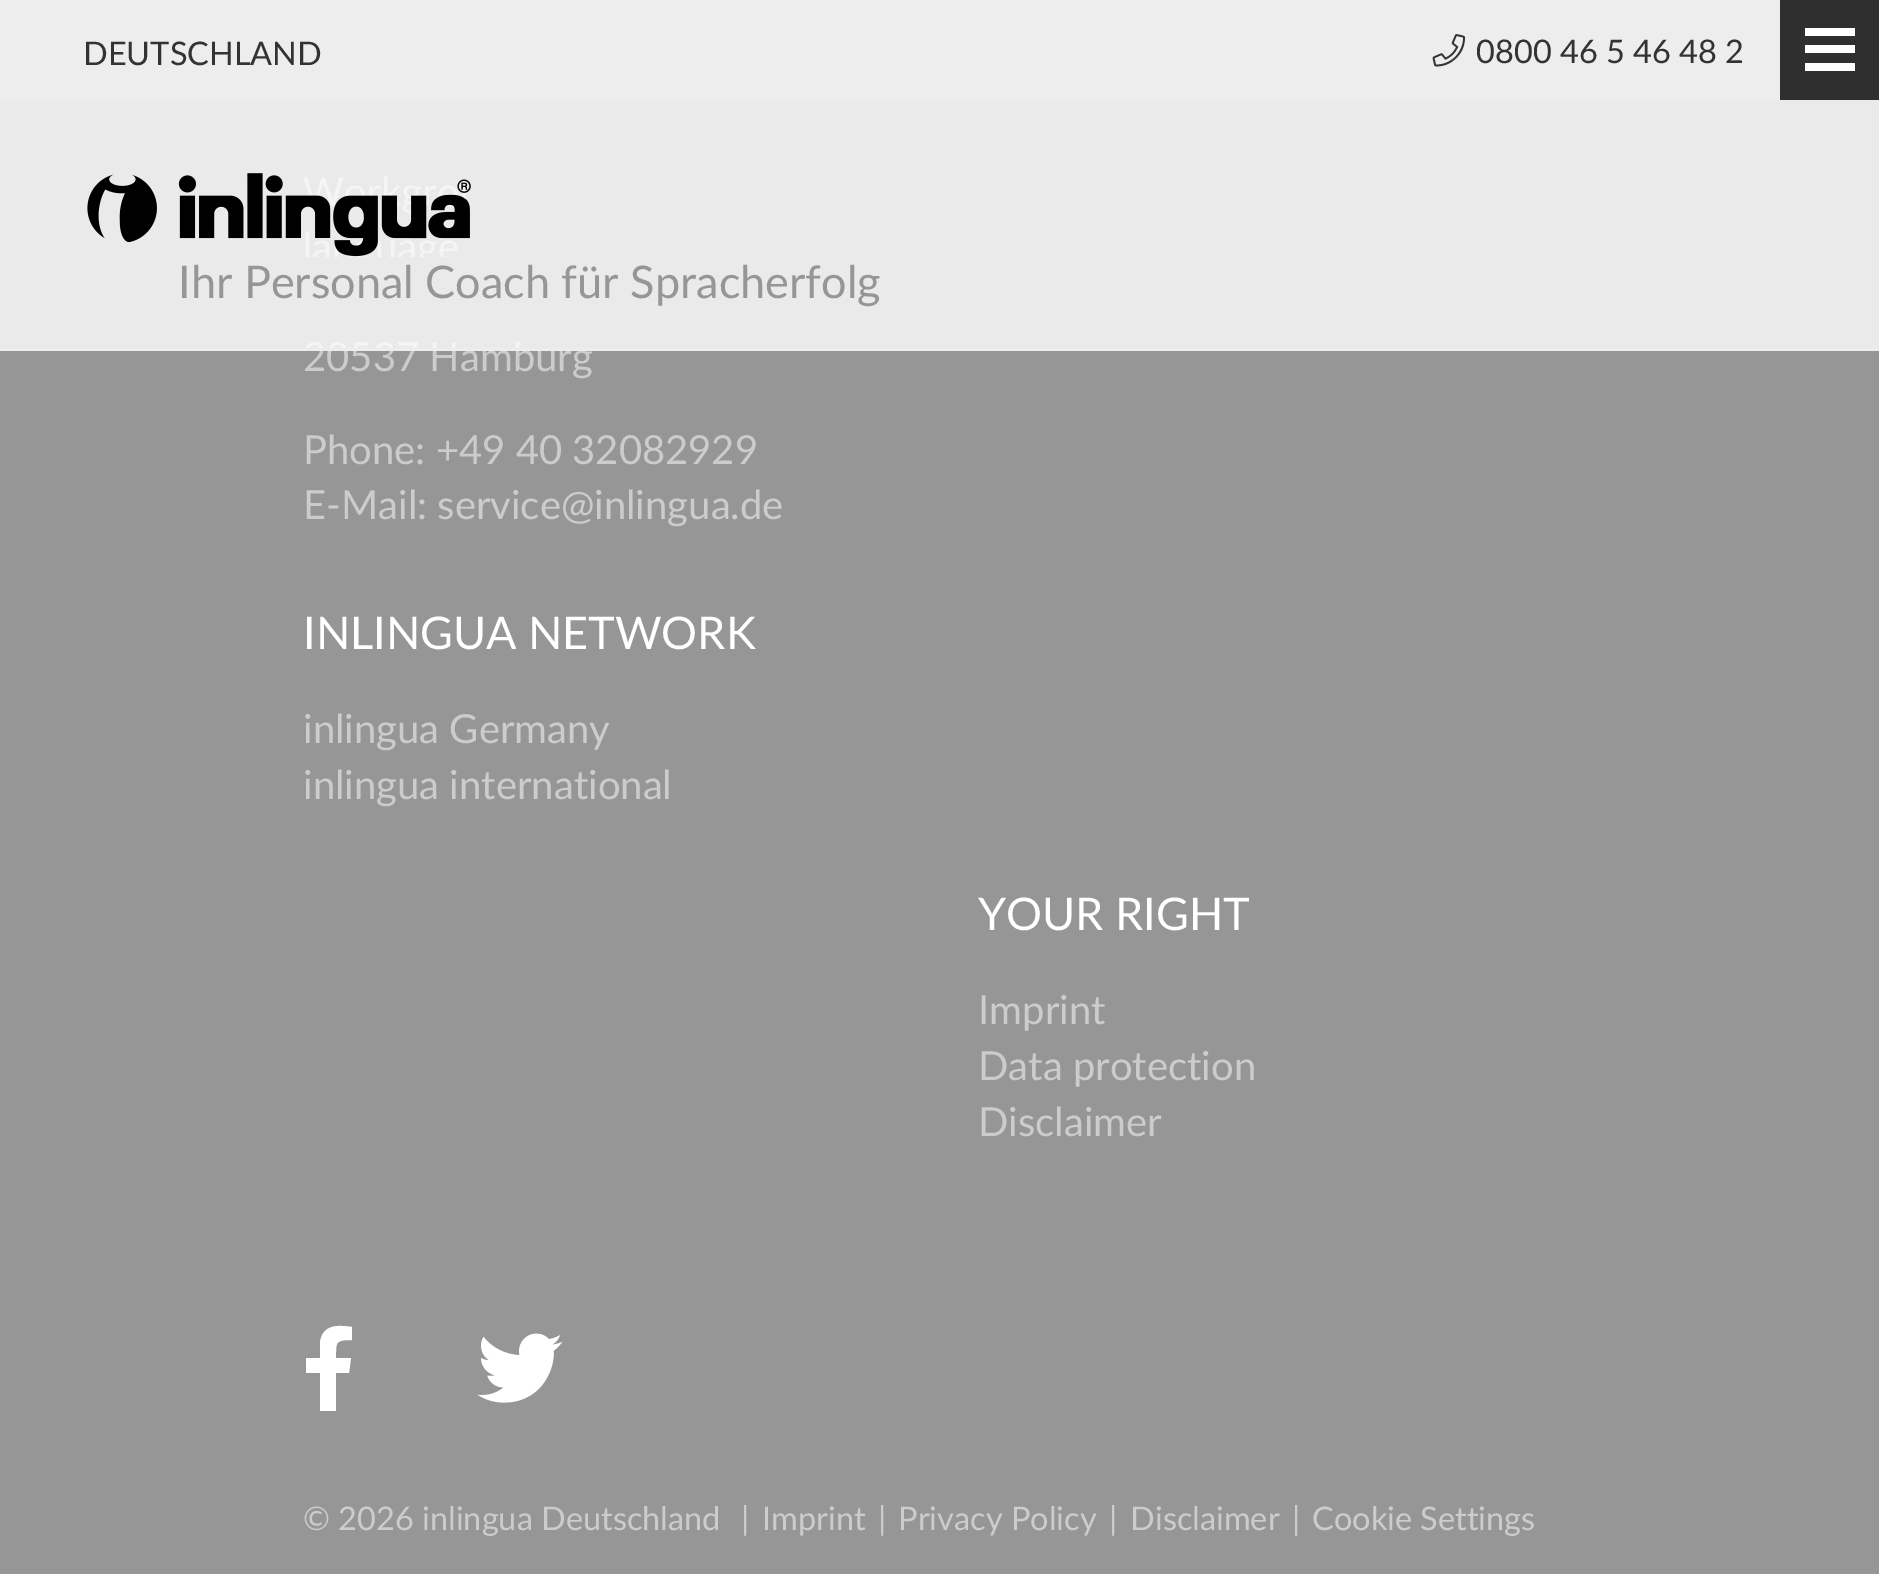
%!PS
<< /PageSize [1879 1574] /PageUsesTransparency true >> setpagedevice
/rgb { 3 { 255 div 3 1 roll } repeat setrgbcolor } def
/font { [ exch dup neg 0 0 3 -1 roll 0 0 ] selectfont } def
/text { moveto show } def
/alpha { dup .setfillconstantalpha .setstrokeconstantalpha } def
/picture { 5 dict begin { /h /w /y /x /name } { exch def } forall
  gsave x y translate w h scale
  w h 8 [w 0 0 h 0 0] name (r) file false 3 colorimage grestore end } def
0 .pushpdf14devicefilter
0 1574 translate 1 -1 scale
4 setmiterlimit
150 150 150 rgb
0 0 1879 1574 rectfill
237 237 237 rgb
0 0 1780 100 rectfill
(img_01.rgb) 1432 34 34 33 picture
47 47 47 rgb
1780 0 99 100 rectfill
255 255 255 rgb
1805 45 50 8 rectfill
1805 28 50 8 rectfill
1805 63 50 8 rectfill
349 1373 moveto -13 0 rlineto 0 38 rlineto -16 0 rlineto 0 -38 rlineto -14 0 rlineto 0 -15 rlineto 14 0 rlineto 0 -16 rlineto 3 -18 18 -17 32 -15 rcurveto 0 13 rlineto -17 0 -16 2 -16 18 rcurveto 15 0 rlineto closepath fill
(img_03.rgb) 477 1333 86 70 picture
/Lato-Regular 32.5 font
51 51 51 rgb
(DEUTSCHLAND) 83 65 text
(0800 46 5 46 48 2) 1476 63 text
/Lato-Regular 40 font
204 204 204 rgb
(20537 Hamburg) 303 371 text
0.8 alpha
255 255 255 rgb
0 100 1879 248 rectfill
/Lato-Regular 45 font
1 alpha
150 150 150 rgb
(Ihr Personal Coach für Spracherfolg) 178 298 text
(img_02.rgb) 87 173 384 84 picture
237 237 237 rgb
0 348 1879 3 rectfill
/Lato-Regular 40 font
204 204 204 rgb
(Phone: +49 40 32082929) 303 464 text
(E-Mail: service@inlingua.de) 303 519 text
/Lato-Regular 45 font
255 255 255 rgb
(INLINGUA NETWORK) 303 649 text
/Lato-Regular 40 font
204 204 204 rgb
(inlingua Germany) 303 743 text
(inlingua international) 303 799 text
/Lato-Regular 45 font
255 255 255 rgb
(YOUR RIGHT) 978 930 text
/Lato-Regular 40 font
204 204 204 rgb
(Imprint) 978 1024 text
(Data protection) 978 1080 text
(Disclaimer) 978 1136 text
/Lato-Regular 32.5 font
(© 2026 inlingua Deutschland) 303 1530 text
(|) 741 1530 text
(Imprint) 762 1530 text
(|) 878 1530 text
(Privacy Policy) 898 1530 text
(|) 1109 1530 text
(Disclaimer) 1130 1530 text
(|) 1292 1530 text
(Cookie Settings) 1312 1530 text
.poppdf14devicefilter showpage
